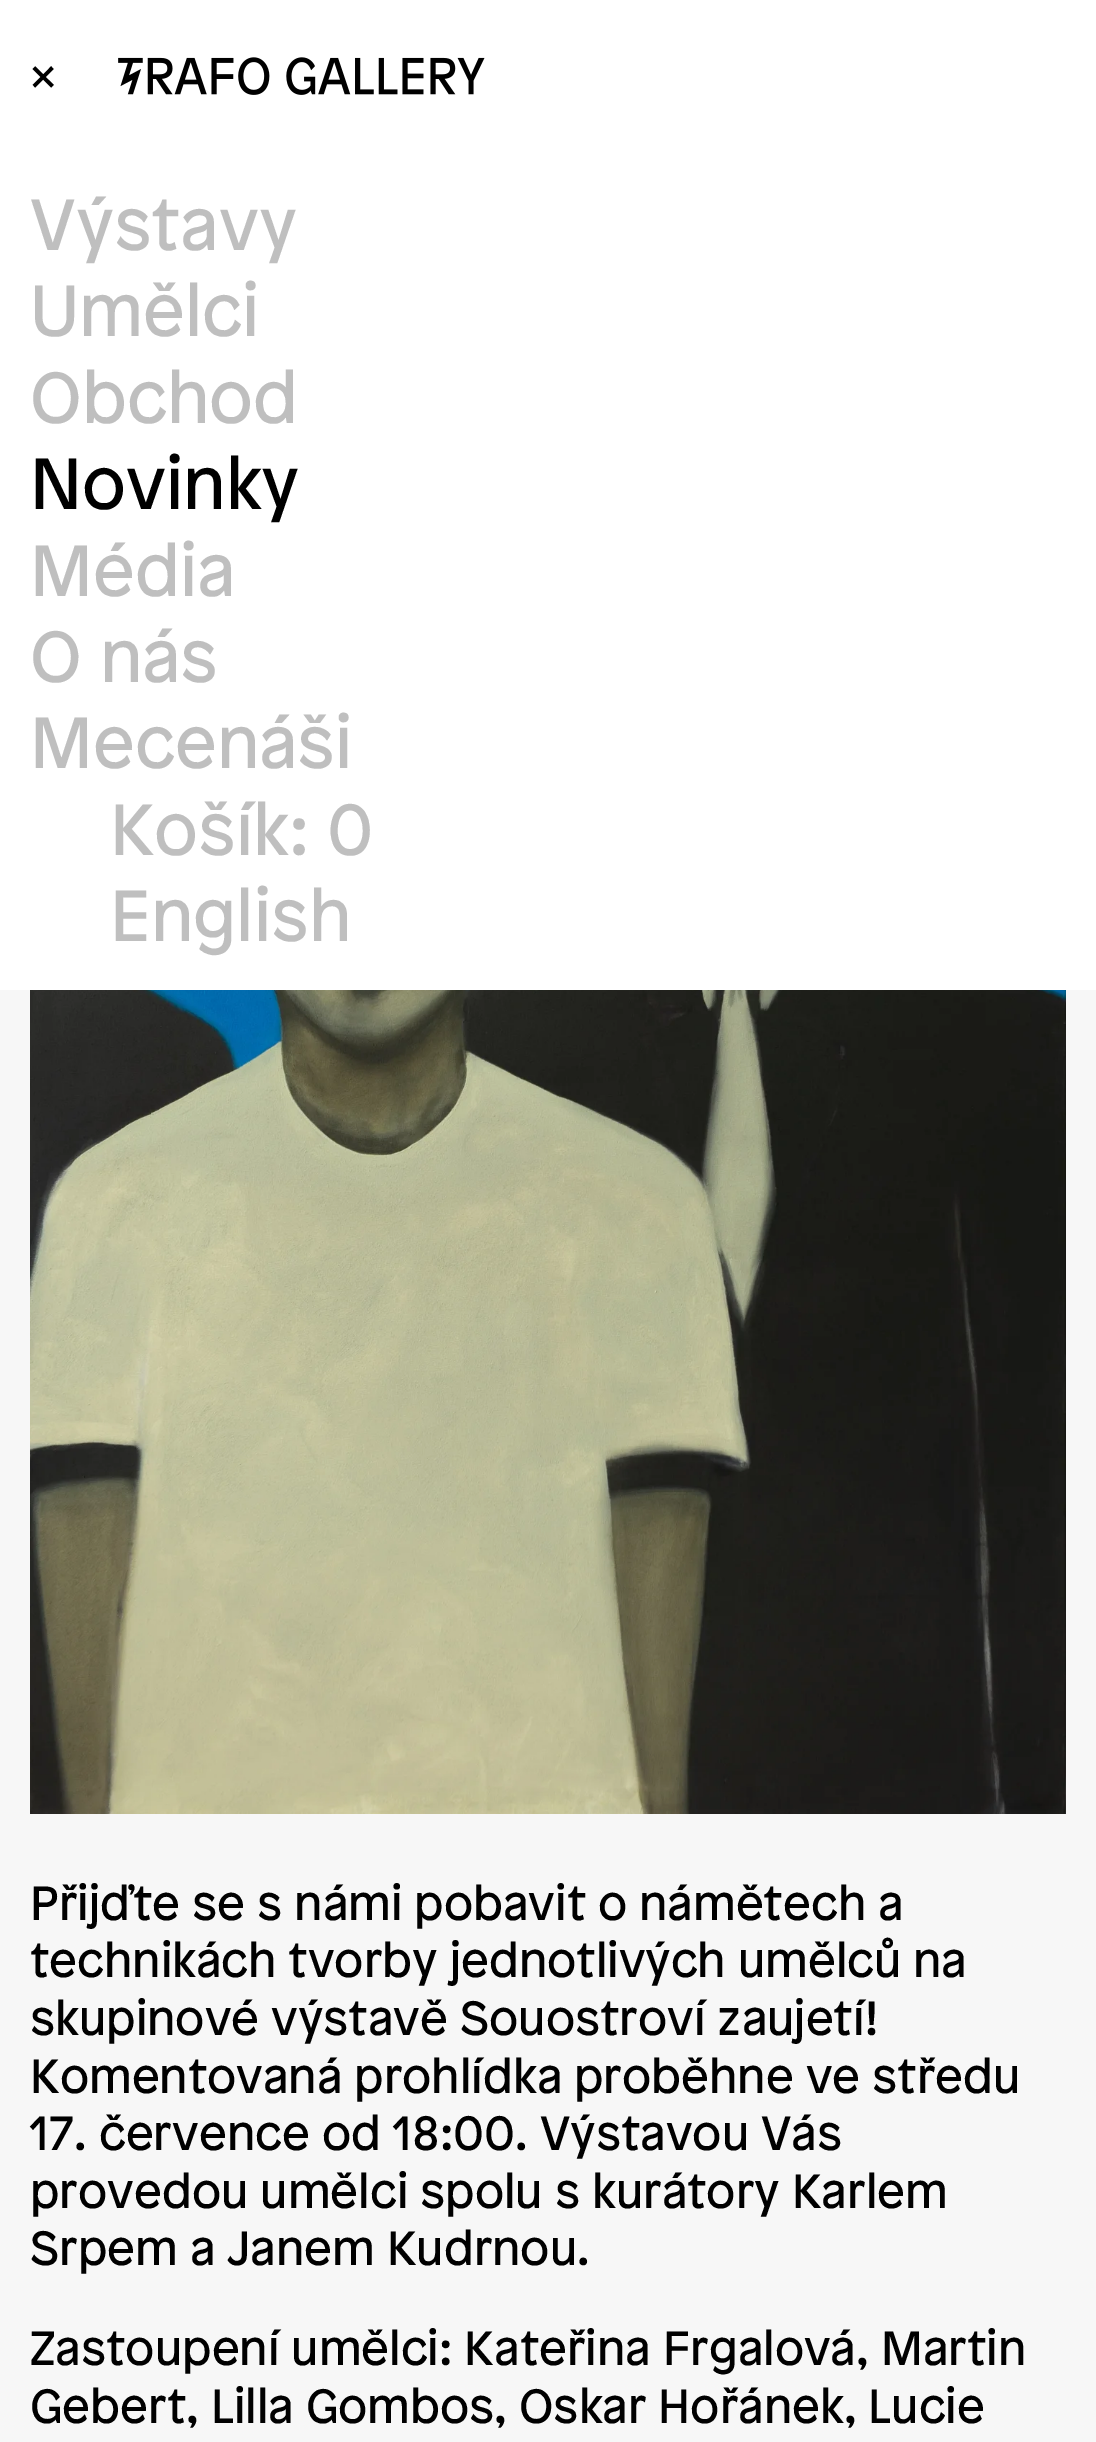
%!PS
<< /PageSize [1096 2442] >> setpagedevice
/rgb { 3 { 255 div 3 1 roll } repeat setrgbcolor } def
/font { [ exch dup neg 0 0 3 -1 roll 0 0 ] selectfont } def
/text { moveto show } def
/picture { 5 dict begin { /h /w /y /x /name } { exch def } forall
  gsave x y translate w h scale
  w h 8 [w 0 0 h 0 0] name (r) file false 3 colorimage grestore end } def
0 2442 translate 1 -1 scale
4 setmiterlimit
247 247 247 rgb
0 0 1096 2442 rectfill
255 255 255 rgb
0 0 1096 990 rectfill
(img_01.rgb) 118 57 367 38 picture
(img_02.rgb) 30 990 1036 824 picture
/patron-Regular 48 font
0 0 0 rgb
(×) 30 94 text
/patron-Regular 72 font
191 191 191 rgb
(Výstavy) 30 250 text
(Umělci) 30 336 text
(Obchod) 30 423 text
0 0 0 rgb
(Novinky) 30 509 text
191 191 191 rgb
(Média) 30 596 text
(O nás) 30 682 text
(Mecenáši) 30 768 text
(Košík: 0) 110 855 text
(English) 110 941 text
/patron-Regular 48 font
0 0 0 rgb
(Přijďte se s námi pobavit o námětech a) 30 1920 text
(technikách tvorby jednotlivých umělců na) 30 1977 text
(skupinové výstavě Souostroví zaujetí!) 30 2035 text
(Komentovaná prohlídka proběhne ve středu) 30 2093 text
(17. července od 18:00. Výstavou Vás) 30 2150 text
(provedou umělci spolu s kurátory Karlem) 30 2208 text
(Srpem a Janem Kudrnou.) 30 2265 text
(Zastoupení umělci: Kateřina Frgalová, Martin) 30 2365 text
(Gebert, Lilla Gombos, Oskar Hořánek, Lucie) 30 2423 text
showpage
